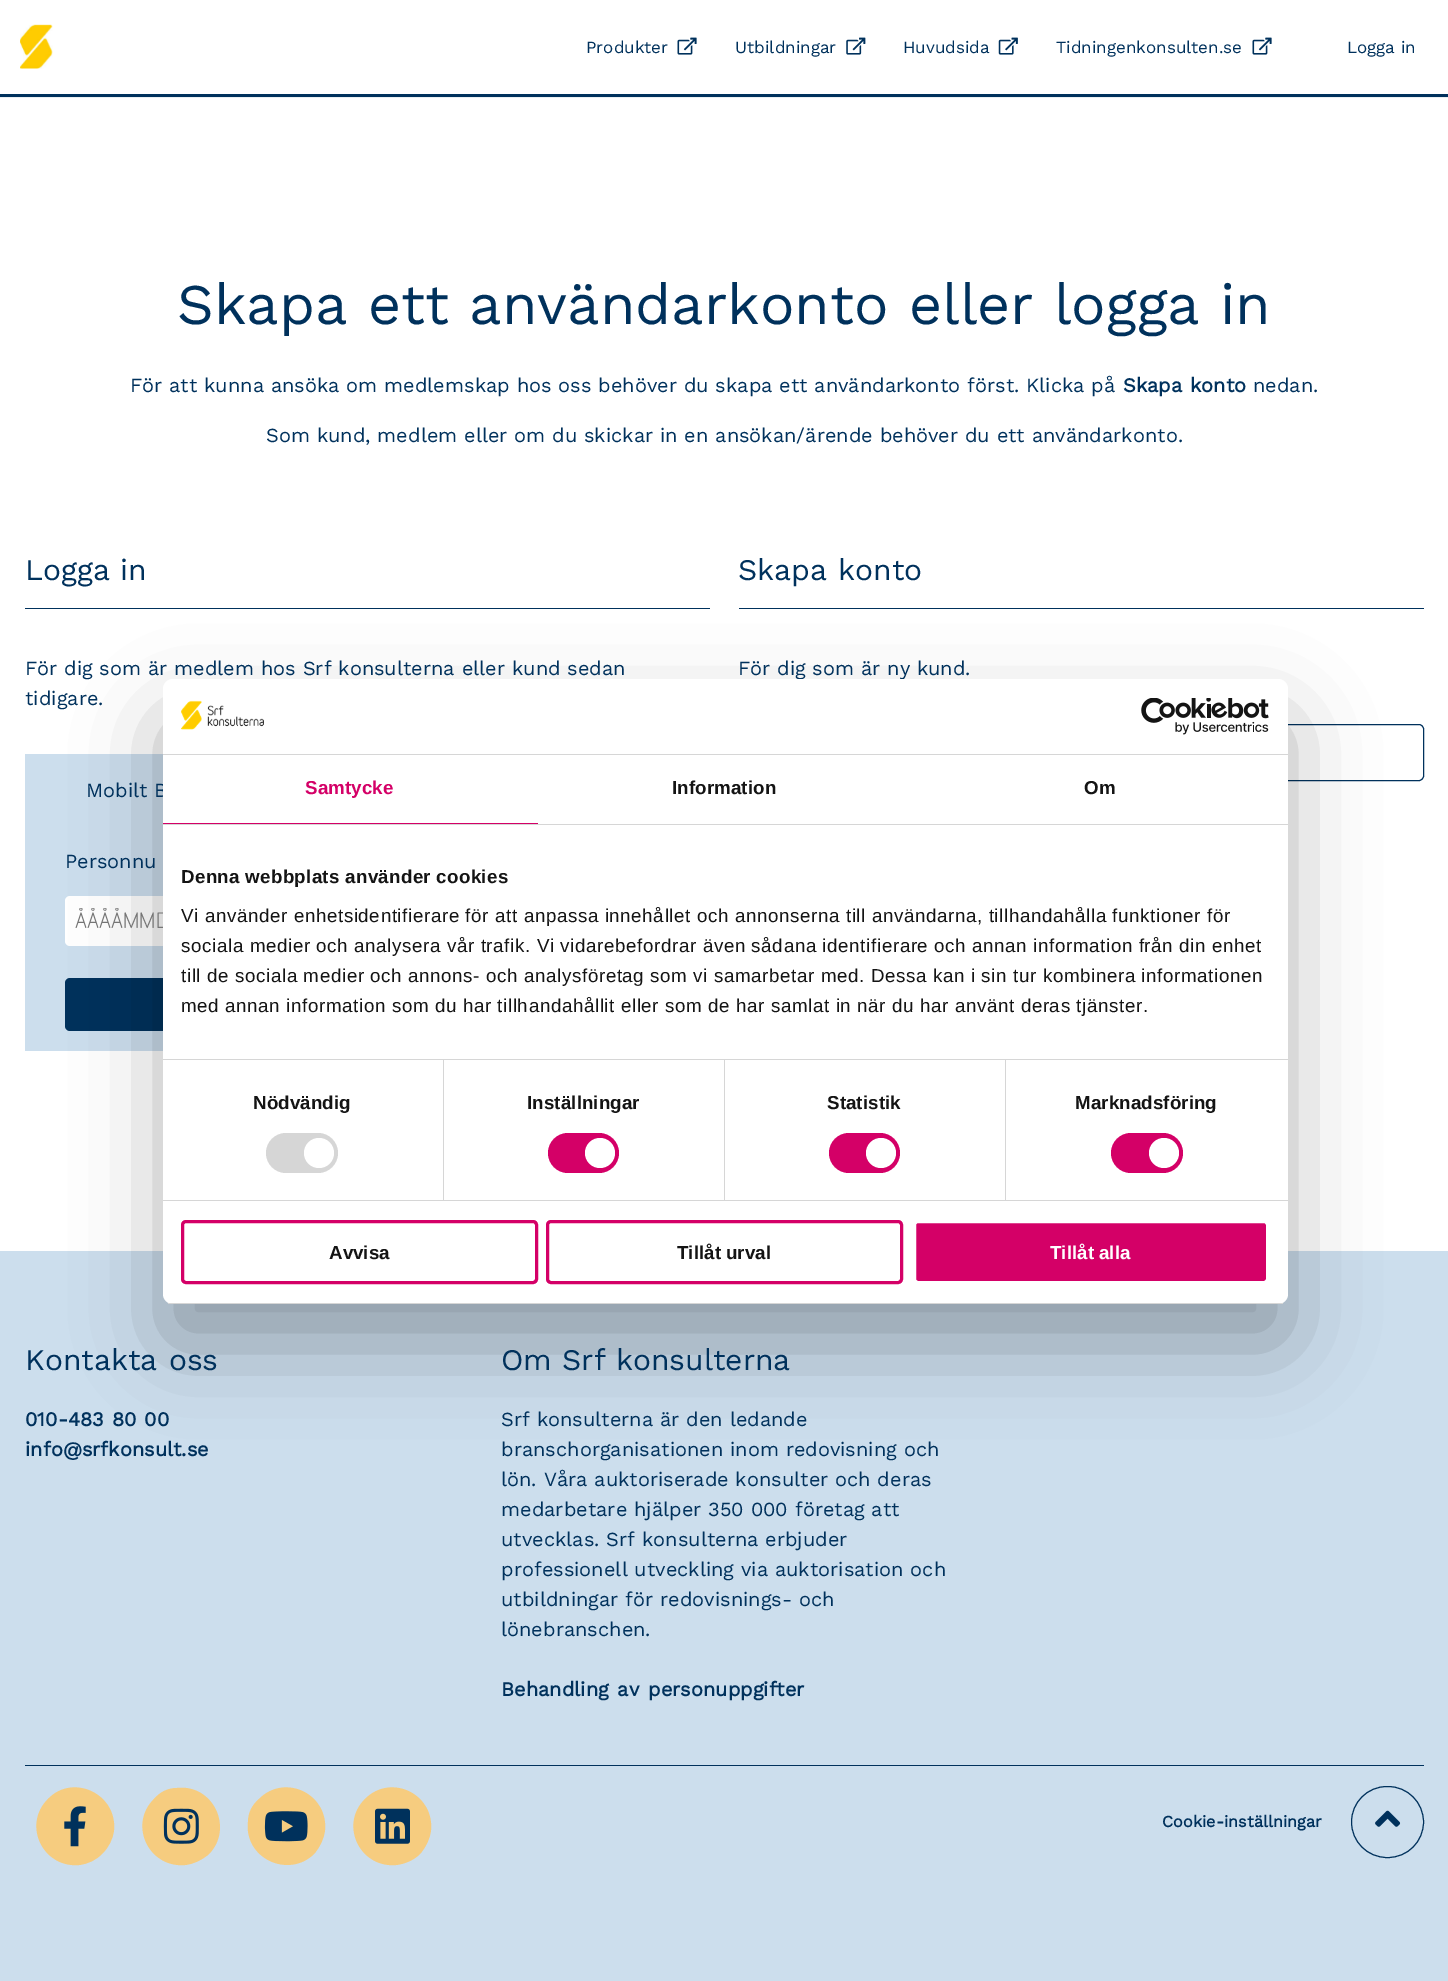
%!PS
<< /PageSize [1448 1981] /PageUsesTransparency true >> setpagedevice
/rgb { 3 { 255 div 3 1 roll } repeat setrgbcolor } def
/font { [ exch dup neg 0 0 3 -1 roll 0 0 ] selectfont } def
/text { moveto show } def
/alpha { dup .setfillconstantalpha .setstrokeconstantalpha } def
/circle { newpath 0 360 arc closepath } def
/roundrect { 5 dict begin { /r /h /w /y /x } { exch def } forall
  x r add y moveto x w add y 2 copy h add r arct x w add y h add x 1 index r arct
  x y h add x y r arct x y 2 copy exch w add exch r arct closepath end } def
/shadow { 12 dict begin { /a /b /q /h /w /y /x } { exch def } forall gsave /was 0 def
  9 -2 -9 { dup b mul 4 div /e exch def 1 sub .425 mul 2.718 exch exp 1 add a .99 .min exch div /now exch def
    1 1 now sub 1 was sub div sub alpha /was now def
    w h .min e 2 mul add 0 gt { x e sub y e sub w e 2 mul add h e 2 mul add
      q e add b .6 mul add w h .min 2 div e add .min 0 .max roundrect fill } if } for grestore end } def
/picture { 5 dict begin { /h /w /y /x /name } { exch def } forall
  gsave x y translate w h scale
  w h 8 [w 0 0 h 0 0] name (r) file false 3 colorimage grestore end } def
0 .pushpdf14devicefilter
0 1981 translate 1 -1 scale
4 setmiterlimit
204 222 237 rgb
0 0 1448 1981 rectfill
255 255 255 rgb
0 0 1448 1251 rectfill
gsave
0 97 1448 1 rectclip
0 49 92 rgb
0 0 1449 96 0 1 1 shadow
grestore
(img_01.rgb) 20 24 33 45 picture
(img_02.rgb) 677 37 20 18 picture
(img_03.rgb) 846 37 20 18 picture
(img_04.rgb) 998 37 20 18 picture
(img_02.rgb) 1252 37 20 18 picture
0 49 92 rgb
0 94 1448 3 rectfill
25 608 685 1 rectfill
204 222 237 rgb
25 754 138 297 rectfill
255 255 255 rgb
65 896 605 50 5 roundrect fill
0 49 92 rgb
65 978 605 53 5 roundrect fill
739 608 685 1 rectfill
739.5 724.5 684 56 4.5 roundrect stroke
0 0 0 rgb
163 719 1125 625 10 42.5 0.3 shadow
0 49 92 rgb
25 1765 1399 1 rectfill
246 204 127 rgb
48 1799 moveto 25 -26 69 -5 66 31 rcurveto -1 9 -5 17 -12 24 rcurveto -6 6 -14 10 -23 11 rcurveto -36 3 -57 -40 -31 -66 rcurveto closepath fill
(img_07.rgb) 64 1806 22 41 picture
154 1799 moveto 6 -7 14 -11 23 -11 rcurveto 36 -4 57 40 32 66 rcurveto -7 6 -15 10 -24 11 rcurveto -36 3 -57 -40 -31 -66 rcurveto closepath fill
(img_08.rgb) 163 1808 36 36 picture
259 1799 moveto 26 -26 69 -5 66 31 rcurveto -1 9 -5 17 -11 24 rcurveto -26 25 -70 4 -66 -32 rcurveto 0 -9 4 -17 11 -23 rcurveto closepath fill
(img_09.rgb) 264 1811 44 31 picture
365 1799 moveto 26 -26 69 -5 66 31 rcurveto -1 9 -5 17 -11 24 rcurveto -6 6 -15 10 -24 11 rcurveto -36 3 -57 -40 -31 -66 rcurveto closepath fill
(img_10.rgb) 375 1808 35 36 picture
0 49 92 rgb
1351.5 1786.5 72 71 35.5 roundrect stroke
(img_11.rgb) 1375 1810 26 17 picture
/WorkSans-Regular 17 font
(Produkter) 586 53 text
(Utbildningar) 735 53 text
(Huvudsida) 903 53 text
(Tidningenkonsulten.se) 1056 53 text
(Logga in) 1347 53 text
/WorkSans-Regular 57.5 font
177 324 moveto 0.5 0 32 (Skapa ett användarkonto eller logga in) widthshow
/WorkSans-Regular 20 font
(För att kunna ansöka om medlemskap hos oss behöver du skapa ett användarkonto först. Klicka på) 130 392 text
/WorkSans-Bold 20 font
1123 392 moveto 1 0 32 (Skapa konto) widthshow
/WorkSans-Regular 20 font
(nedan.) 1253 392 text
(Som kund, medlem eller om du skickar in en ansökan/ärende behöver du ett användarkonto.) 266 442 text
/WorkSans-Regular 30 font
(Logga in) 25 580 text
/WorkSans-Regular 20 font
(För dig som är medlem hos Srf konsulterna eller kund sedan) 25 675 text
(tidigare.) 25 705 text
(Mobilt B) 86 797 text
(Personnu) 65 868 text
gsave
75 908 585 28 rectclip
/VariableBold-Bold 20 font
117 117 117 rgb
(ÅÅÅÅMMD) 75 928 text
grestore
/WorkSans-Regular 30 font
738 580 moveto 1 0 32 (Skapa konto) widthshow
/WorkSans-Regular 20 font
(För dig som är ny kund.) 738 675 text
255 255 255 rgb
163 679 1125 625 10 roundrect fill
214 214 214 rgb
163 754 1125 1 rectfill
(img_05.rgb) 181 700 83 30 picture
(img_06.rgb) 1141 698 128 37 picture
163 824 1125 1 rectfill
212 0 103 rgb
163 823 375 1 rectfill
/LiberationSans-Bold 18.75 font
305 794 moveto 0.1 0 (Samtycke) ashow
20 20 20 rgb
672 794 moveto 0.1 0 (Information) ashow
1084 794 moveto 0.1 0 (Om) ashow
214 214 214 rgb
163 1059 1125 1 rectfill
20 20 20 rgb
181 883 moveto 0.3 0 (Denna webbplats använder cookies) ashow
/LiberationSans-Regular 18.75 font
181 922 moveto 0.62 0 (Vi använder enhetsidentifierare för att anpassa innehållet och annonserna till användarna, tillhandahålla funktioner för) ashow
181 952 moveto 0.62 0 (sociala medier och analysera vår trafik. Vi vidarebefordrar även sådana identifierare och annan information från din enhet) ashow
181 982 moveto 0.62 0 (till de sociala medier och annons- och analysföretag som vi samarbetar med. Dessa kan i sin tur kombinera informationen) ashow
181 1012 moveto 0.62 0 (med annan information som du har tillhandahållit eller som de har samlat in när du har använt deras tjänster.) ashow
214 214 214 rgb
163 1200 1125 1 rectfill
443 1060 1 140 rectfill
/LiberationSans-Bold 18.75 font
20 20 20 rgb
253 1109 moveto 0.1 0 (Nödvändig) ashow
214 214 214 rgb
266 1133 72 40 20 roundrect fill
255 255 255 rgb
319 1153 15 circle fill
214 214 214 rgb
724 1060 1 140 rectfill
20 20 20 rgb
527 1109 moveto 0.1 0 (Inställningar) ashow
212 0 103 rgb
548 1133 71 40 20 roundrect fill
255 255 255 rgb
600 1153 15 circle fill
214 214 214 rgb
1005 1060 1 140 rectfill
20 20 20 rgb
827 1109 moveto 0.1 0 (Statistik) ashow
212 0 103 rgb
829 1133 71 40 20 roundrect fill
255 255 255 rgb
881 1153 15 circle fill
20 20 20 rgb
1075 1109 moveto 0.1 0 (Marknadsföring) ashow
212 0 103 rgb
1111 1133 72 40 20 roundrect fill
255 255 255 rgb
1164 1153 15 circle fill
gsave
163 679 1125 625 10 roundrect clip newpath
214 214 214 rgb
163 1303 1125 1 rectfill
grestore
212 0 103 rgb
3 setlinewidth
182.5 1221.5 354 61 3.5 roundrect stroke
20 20 20 rgb
(Avvisa) 329 1259 text
212 0 103 rgb
547.5 1221.5 354 61 3.5 roundrect stroke
20 20 20 rgb
(Tillåt urval) 677 1259 text
212 0 103 rgb
914.5 1221.5 353 61 3.5 roundrect gsave fill grestore
255 255 255 rgb
stroke
(Tillåt alla) 1050 1259 text
/WorkSans-Regular 30 font
0 49 92 rgb
25 1370 moveto 1 0 32 (Kontakta oss) widthshow
/WorkSans-Bold 20 font
25 1426 moveto 1 0 32 (010-483 80 00) widthshow
(info@srfkonsult.se) 25 1456 text
/WorkSans-Regular 30 font
(Om Srf konsulterna) 501 1370 text
/WorkSans-Regular 20 font
(Srf konsulterna är den ledande) 501 1426 text
(branschorganisationen inom redovisning och) 501 1456 text
(lön. Våra auktoriserade konsulter och deras) 501 1486 text
(medarbetare hjälper 350 000 företag att) 501 1516 text
(utvecklas. Srf konsulterna erbjuder) 501 1546 text
(professionell utveckling via auktorisation och) 501 1576 text
(utbildningar för redovisnings- och) 501 1606 text
(lönebranschen.) 501 1636 text
/WorkSans-Bold 20 font
501 1696 moveto 2 0 32 (Behandling av personuppgifter) widthshow
/WorkSans-Bold 16.25 font
(Cookie-inställningar) 1162 1827 text
.poppdf14devicefilter showpage
